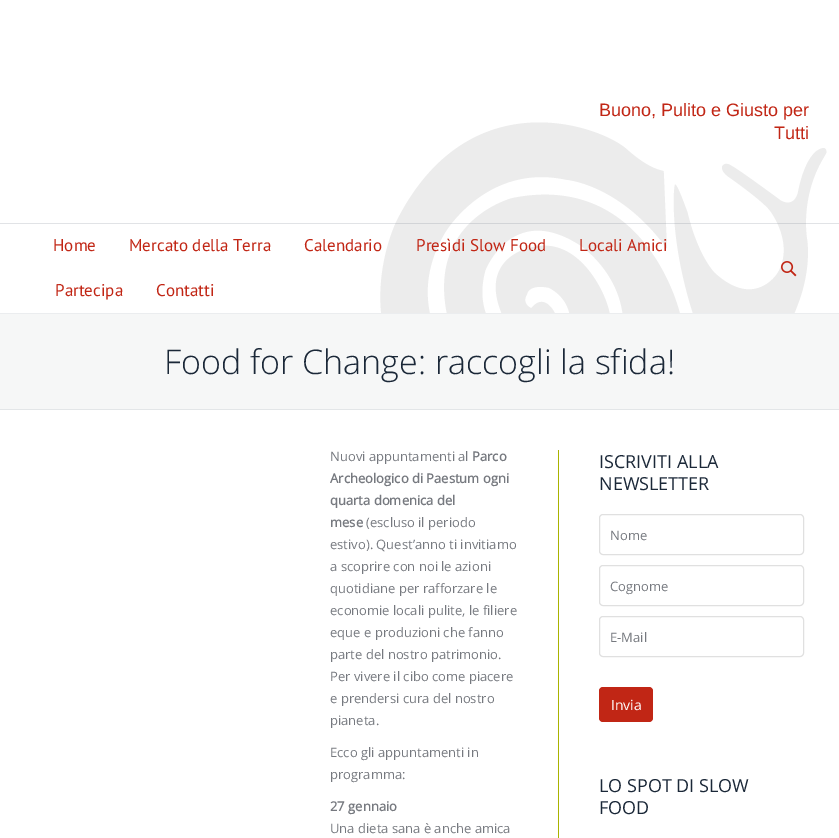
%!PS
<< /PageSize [839 838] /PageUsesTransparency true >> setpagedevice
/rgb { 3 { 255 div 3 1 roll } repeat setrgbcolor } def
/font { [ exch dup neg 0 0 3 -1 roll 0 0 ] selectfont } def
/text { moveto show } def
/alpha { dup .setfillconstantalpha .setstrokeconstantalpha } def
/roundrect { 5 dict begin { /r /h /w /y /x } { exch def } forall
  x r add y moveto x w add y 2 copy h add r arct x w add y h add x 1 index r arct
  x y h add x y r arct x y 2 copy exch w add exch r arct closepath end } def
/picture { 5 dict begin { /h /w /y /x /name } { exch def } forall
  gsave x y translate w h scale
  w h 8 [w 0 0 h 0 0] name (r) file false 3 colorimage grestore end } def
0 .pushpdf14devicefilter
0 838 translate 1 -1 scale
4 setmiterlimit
255 255 255 rgb
0 0 839 838 rectfill
(img_01.rgb) 380 122 447 191 picture
235 237 239 rgb
0 313 839 1 rectfill
0.21 alpha
111 123 139 rgb
0 223 839 1 rectfill
1 alpha
(img_02.rgb) 781 261 16 16 picture
246 247 247 rgb
0 314 839 95 rectfill
227 230 232 rgb
0 409 839 1 rectfill
170 179 0 rgb
558 450 1 388 rectfill
224 224 224 rgb
599.5 514.5 204 40 3.5 roundrect stroke
599.5 565.5 204 40 3.5 roundrect stroke
599.5 616.5 204 40 3.5 roundrect stroke
193 38 21 rgb
599 687 54 35 4 roundrect fill
/LiberationSans-Regular 18 font
(Buono, Pulito e Giusto per) 599 116 text
(Tutti) 774 139 text
/PTSans-Regular 17 font
(Home) 53 251 text
(Mercato della Terra) 129 251 text
(Calendario) 304 251 text
(Presìdi Slow Food) 416 251 text
(Locali Amici) 579 251 text
(Partecipa) 55 296 text
(Contatti) 156 296 text
/OpenSans-Light 34 font
27 40 56 rgb
(Food for Change: raccogli la sfida!) 164 374 text
/OpenSans-Regular 13 font
118 121 127 rgb
(Nuovi appuntamenti al) 330 461 text
/OpenSans-Bold 13 font
(Parco) 472 461 text
(Archeologico di Paestum ogni) 330 483 text
(quarta domenica del) 330 505 text
(mese) 330 527 text
/OpenSans-Regular 13 font
(\(escluso il periodo) 366 527 text
(estivo\). Quest’anno ti invitiamo) 330 549 text
(a scoprire con noi le azioni) 330 571 text
(quotidiane per rafforzare le) 330 593 text
(economie locali pulite, le filiere) 330 615 text
(eque e produzioni che fanno) 330 637 text
(parte del nostro patrimonio.) 330 659 text
(Per vivere il cibo come piacere) 330 681 text
(e prendersi cura del nostro) 330 703 text
(pianeta.) 330 725 text
(Ecco gli appuntamenti in) 330 757 text
(programma:) 330 779 text
/OpenSans-Bold 13 font
(27 gennaio) 330 811 text
/OpenSans-Regular 13 font
(Una dieta sana è anche amica) 330 833 text
/OpenSans-Regular 18 font
27 40 56 rgb
(ISCRIVITI ALLA) 599 468 text
(NEWSLETTER) 599 490 text
/OpenSans-Regular 13 font
118 121 127 rgb
(Nome) 610 540 text
(Cognome) 610 591 text
(E-Mail) 610 642 text
/OpenSans-Regular 14 font
255 255 255 rgb
(Invia) 611 710 text
/OpenSans-Regular 18 font
27 40 56 rgb
(LO SPOT DI SLOW) 599 792 text
(FOOD) 599 814 text
.poppdf14devicefilter showpage
